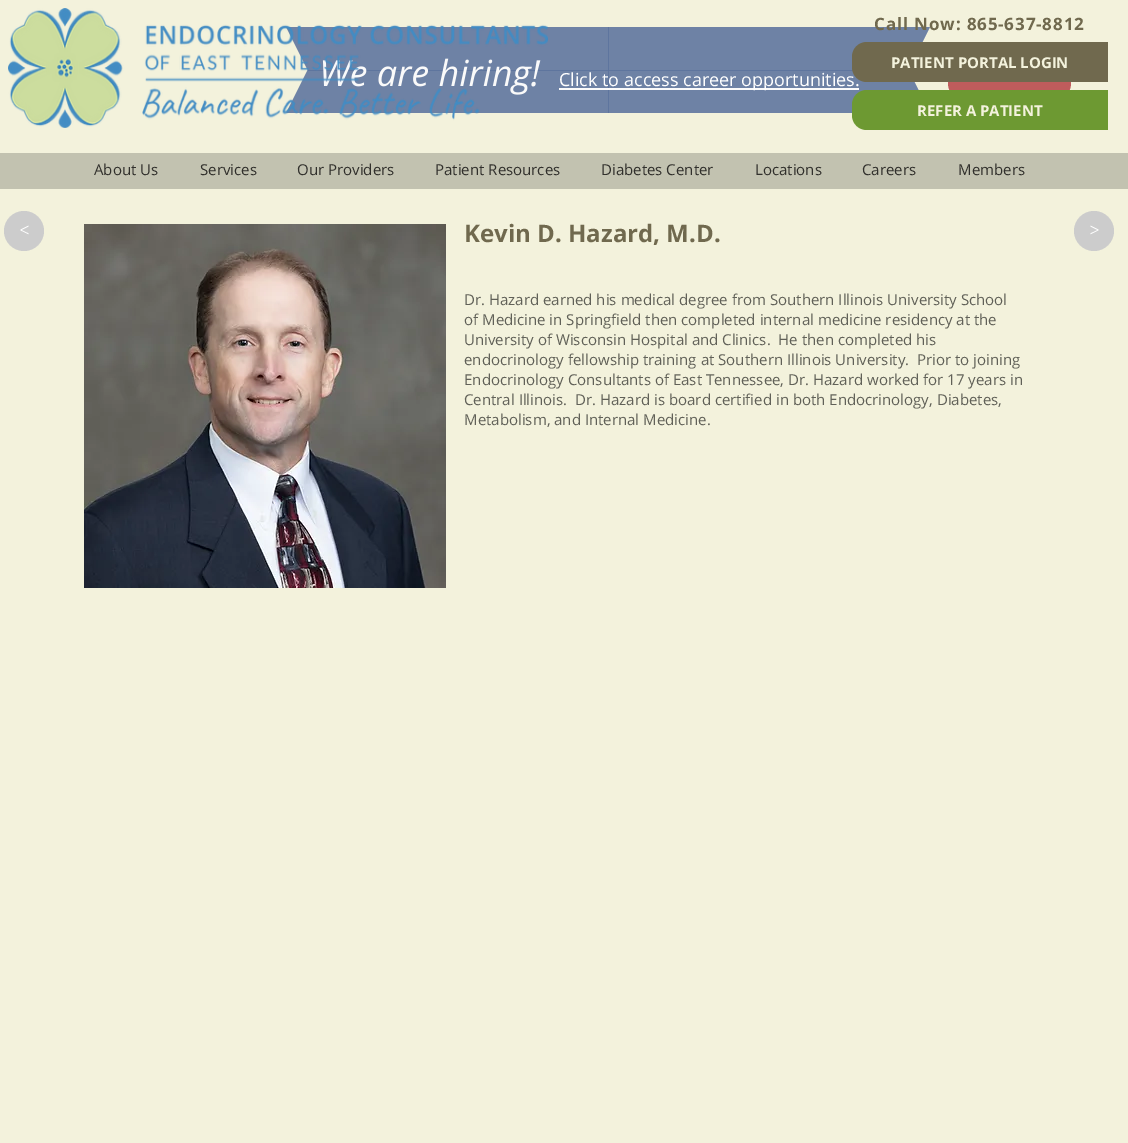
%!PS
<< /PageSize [1128 1143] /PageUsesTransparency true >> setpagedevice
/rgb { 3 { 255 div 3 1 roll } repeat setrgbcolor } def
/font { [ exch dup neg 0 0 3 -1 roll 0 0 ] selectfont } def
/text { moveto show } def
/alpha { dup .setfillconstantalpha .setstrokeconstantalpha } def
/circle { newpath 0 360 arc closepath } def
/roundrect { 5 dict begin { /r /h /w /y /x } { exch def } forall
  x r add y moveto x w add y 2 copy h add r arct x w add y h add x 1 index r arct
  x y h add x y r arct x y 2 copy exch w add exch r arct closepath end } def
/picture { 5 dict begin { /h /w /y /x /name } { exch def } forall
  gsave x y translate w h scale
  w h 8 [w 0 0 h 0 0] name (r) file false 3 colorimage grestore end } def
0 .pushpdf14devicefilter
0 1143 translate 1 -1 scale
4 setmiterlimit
243 242 220 rgb
0 0 1128 1143 rectfill
gsave
286 27 323 44 rectclip
110 130 165 rgb
286 27 moveto 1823 0 rlineto -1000 1000 rlineto -323 0 rlineto closepath fill
grestore
gsave
608 27 322 44 rectclip
0.88 alpha
92 115 157 rgb
-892 27 moveto 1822 0 rlineto -500 1000 rlineto -322 0 rlineto closepath fill
grestore
gsave
286 70 323 43 rectclip
0.88 alpha
92 115 157 rgb
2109 113 moveto -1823 0 rlineto 500 -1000 rlineto 323 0 rlineto closepath fill
grestore
gsave
608 70 322 43 rectclip
0.88 alpha
92 115 157 rgb
930 113 moveto -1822 0 rlineto 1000 -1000 rlineto 322 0 rlineto closepath fill
grestore
250 250 250 rgb
559 88 300 2 rectfill
191 92 92 rgb
948 63 123 40 20 roundrect fill
194 194 176 rgb
0 153 1128 36 rectfill
204 204 204 rgb
24 231 20 circle fill
(img_02.rgb) 84 224 362 364 picture
1094 231 20 circle fill
/OpenSans-Bold 17 font
112 105 78 rgb
874 30 moveto 0.85 0 (Call Now: 865-637-8812) ashow
/OpenSans-Italic 36 font
255 255 255 rgb
(We are hiring!) 319 86 text
(img_01.rgb) 8 8 540 120 picture
/OpenSans-Regular 18 font
(Click to access career opportunities.) 559 86 text
109 153 50 rgb
867 90 moveto 241 0 rlineto 0 40 rlineto -241 0 rlineto -8.5 0 -15 -6.5 -15 -15 rcurveto 0 -10 rlineto 0 -8.5 6.5 -15 15 -15 rcurveto closepath fill
/OpenSans-Bold 15 font
243 242 220 rgb
(REFER A PATIENT) 917 116 text
112 105 78 rgb
867 42 moveto 241 0 rlineto 0 40 rlineto -241 0 rlineto -8.5 0 -15 -6.5 -15 -15 rcurveto 0 -10 rlineto 0 -8.5 6.5 -15 15 -15 rcurveto closepath fill
243 242 220 rgb
(PATIENT PORTAL LOGIN) 891 68 text
/OpenSans-Regular 15 font
49 48 44 rgb
(About Us) 94 175 text
(Services) 200 175 text
(Our Providers) 297 175 text
(Patient Resources) 435 175 text
(Diabetes Center) 601 175 text
(Locations) 755 175 text
(Careers) 862 175 text
(Members) 958 175 text
/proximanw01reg-Regular 18 font
255 255 255 rgb
(<) 20 236 text
/OpenSans-Bold 24 font
112 105 78 rgb
(Kevin D. Hazard, M.D.) 464 242 text
/proximanw01reg-Regular 18 font
255 255 255 rgb
(>) 1090 236 text
/OpenSans-Regular 15 font
97 97 88 rgb
(Dr. Hazard earned his medical degree from Southern Illinois University School) 464 305 text
(of Medicine in Springfield then completed internal medicine residency at the) 464 325 text
(University of Wisconsin Hospital and Clinics.  He then completed his) 464 345 text
(endocrinology fellowship training at Southern Illinois University.  Prior to joining) 464 365 text
(Endocrinology Consultants of East Tennessee, Dr. Hazard worked for 17 years in) 464 385 text
(Central Illinois.  Dr. Hazard is board certified in both Endocrinology, Diabetes,) 464 405 text
(Metabolism, and Internal Medicine.) 464 425 text
.poppdf14devicefilter showpage
